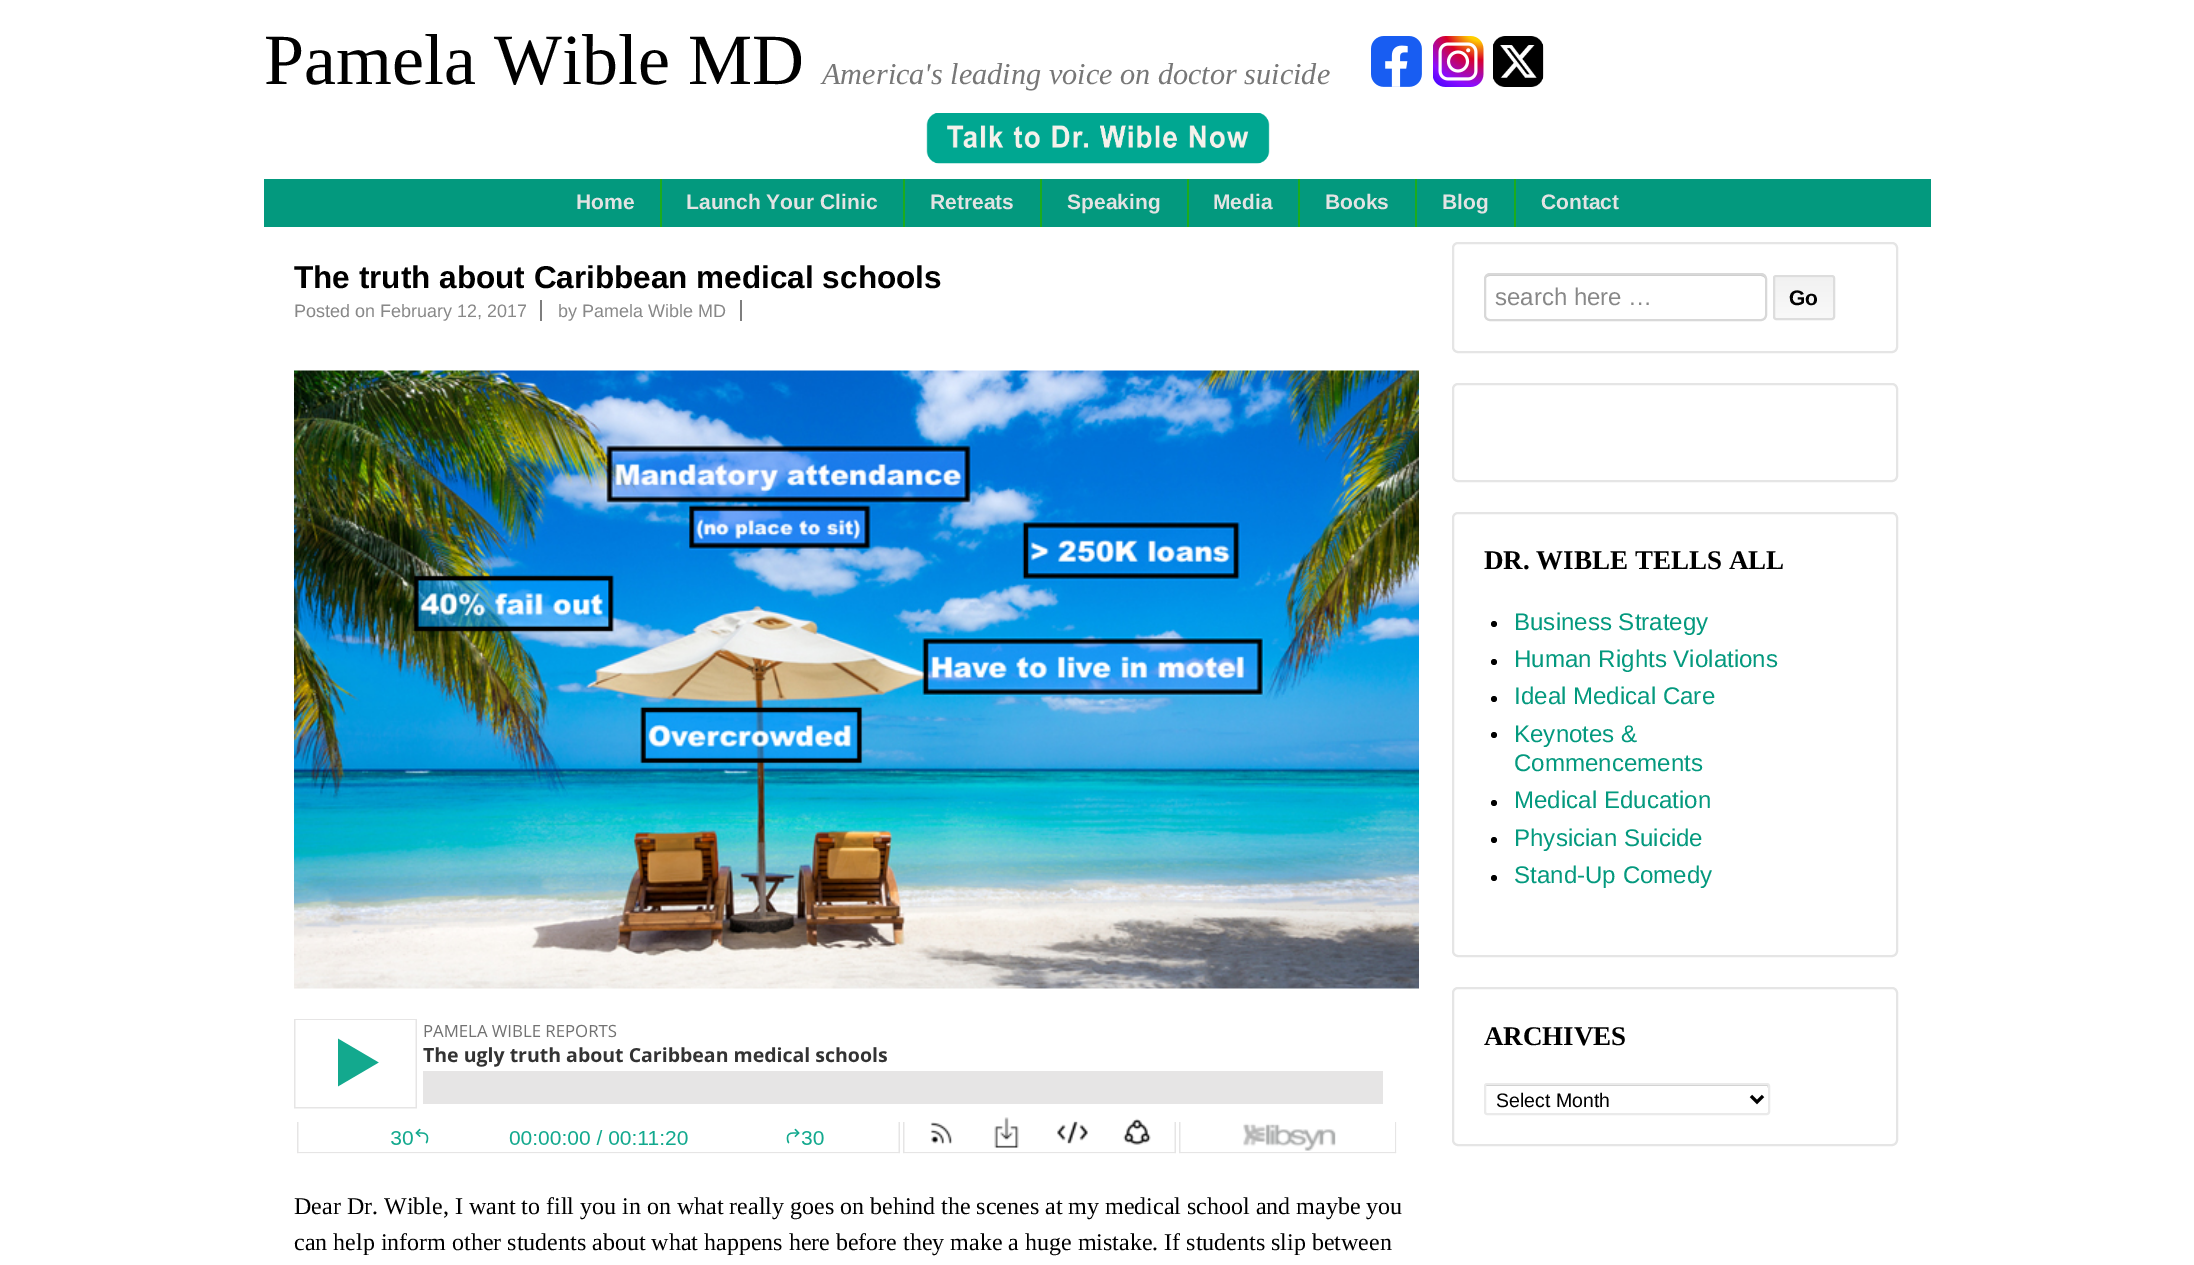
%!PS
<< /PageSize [2194 1265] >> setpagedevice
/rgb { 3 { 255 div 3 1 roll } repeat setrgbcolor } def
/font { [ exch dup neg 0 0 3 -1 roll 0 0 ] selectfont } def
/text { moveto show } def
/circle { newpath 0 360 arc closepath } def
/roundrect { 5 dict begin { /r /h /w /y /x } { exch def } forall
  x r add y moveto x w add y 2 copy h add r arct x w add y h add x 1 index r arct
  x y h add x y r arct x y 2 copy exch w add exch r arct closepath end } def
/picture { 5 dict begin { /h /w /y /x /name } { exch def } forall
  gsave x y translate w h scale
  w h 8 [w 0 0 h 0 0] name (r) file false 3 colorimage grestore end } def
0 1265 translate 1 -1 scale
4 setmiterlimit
255 255 255 rgb
0 0 2194 1265 rectfill
(img_01.rgb) 1371 36 51 51 picture
(img_02.rgb) 1433 36 51 51 picture
(img_03.rgb) 1493 36 51 51 picture
(img_04.rgb) 926 113 344 51 picture
3 153 126 rgb
264 179 1667 48 rectfill
28 172 28 rgb
660 179 2 48 rectfill
903 179 2 48 rectfill
1040 179 2 48 rectfill
1187 179 2 48 rectfill
1298 179 2 48 rectfill
1415 179 2 48 rectfill
1514 179 2 48 rectfill
126 126 126 rgb
540 300 2 21 rectfill
740 300 2 21 rectfill
(img_05.rgb) 294 370 1125 619 picture
(img_06.rgb) 294 1019 1103 135 picture
229 229 229 rgb
2 setlinewidth
1453 243 444 109 5 roundrect stroke
204 204 204 rgb
1490 276 moveto 271 0 rlineto 2 0 5 2 5 4 rcurveto 0 -3 -2 -5 -5 -5 rcurveto -271 0 rlineto -3 0 -5 2 -5 5 rcurveto 0 -2 2 -4 5 -4 rcurveto closepath fill
216 216 216 rgb
1485 274 281 46 5 roundrect stroke
gsave
1773 275 62 45 3 roundrect clip newpath
gsave 1773 276 moveto 62 0 rlineto 0 42 rlineto -62 0 rlineto closepath clip newpath
<< /ShadingType 2 /ColorSpace /DeviceRGB /Coords [1804 318 1804 276] /Extend [true true] /Function << /FunctionType 2 /Domain [0 1] /C0 [0.976 0.976 0.976] /C1 [0.945 0.945 0.945] /N 1 >> >> shfill grestore
grestore
245 245 245 rgb
1776 276 moveto -1 0 -1 1 -1 2 rcurveto 57 0 rlineto 1 0 1 2 1 3 rcurveto 0 -2 1 -5 -1 -5 rcurveto closepath fill
221 221 221 rgb
1774 276 60 43 2 roundrect stroke
229 229 229 rgb
1453 384 444 97 5 roundrect stroke
1453 513 444 443 5 roundrect stroke
0 0 0 rgb
1494 624 3 circle fill
1494 662 3 circle fill
1494 699 3 circle fill
1494 735 3 circle fill
1494 803 3 circle fill
1494 840 3 circle fill
1494 878 3 circle fill
229 229 229 rgb
1453 988 444 157 5 roundrect stroke
204 204 204 rgb
1486 1086 moveto 281 0 rlineto 1 0 1 1 1 2 rcurveto 0 25 rlineto 2 -1 1 -12 1 -14 rcurveto 0 -8 rlineto 0 -1 1 -6 -1 -6 rcurveto -282 0 rlineto -1 0 rlineto 0 3 rlineto closepath fill
234 234 234 rgb
1485 1084 284 30 2 roundrect stroke
0 0 0 rgb
3 setlinewidth
1751 1096 moveto 6 6 rlineto 6 -6 rlineto stroke
/LiberationSerif-Regular 72 font
(Pamela Wible MD) 264 84 text
/LiberationSerif-Italic 30.25 font
119 119 119 rgb
(America's leading voice on doctor suicide) 822 84 text
/LiberationSans-Bold 21 font
227 227 227 rgb
(Home) 576 209 text
(Launch Your Clinic) 686 209 text
(Retreats) 930 209 text
(Speaking) 1067 209 text
(Media) 1213 209 text
(Books) 1325 209 text
(Blog) 1442 209 text
(Contact) 1541 209 text
/LiberationSans-Bold 31.5 font
0 0 0 rgb
(The truth about Caribbean medical schools) 294 288 text
/LiberationSans-Regular 18 font
136 136 136 rgb
(Posted on February 12, 2017) 294 317 text
(by Pamela Wible MD) 558 317 text
/LiberationSerif-Regular 24 font
0 0 0 rgb
(Dear Dr. Wible, I want to fill you in on what really goes on behind the scenes at my medical school and maybe you) 294 1214 text
(can help inform other students about what happens here before they make a huge mistake. If students slip between) 294 1250 text
/LiberationSans-Regular 24 font
136 136 136 rgb
(search here …) 1495 305 text
/LiberationSans-Bold 21 font
0 0 0 rgb
(Go) 1789 305 text
/LiberationSerif-Bold 27 font
(DR. WIBLE TELLS ALL) 1484 569 text
/LiberationSans-Regular 24.1 font
3 153 126 rgb
(Business Strategy) 1514 630 text
(Human Rights Violations) 1514 667 text
(Ideal Medical Care) 1514 704 text
(Keynotes &) 1514 742 text
(Commencements) 1514 771 text
(Medical Education) 1514 808 text
(Physician Suicide) 1514 846 text
(Stand-Up Comedy) 1514 883 text
/LiberationSerif-Bold 27 font
0 0 0 rgb
(ARCHIVES) 1484 1045 text
/LiberationSans-Regular 19.5 font
(Select Month) 1496 1107 text
showpage
